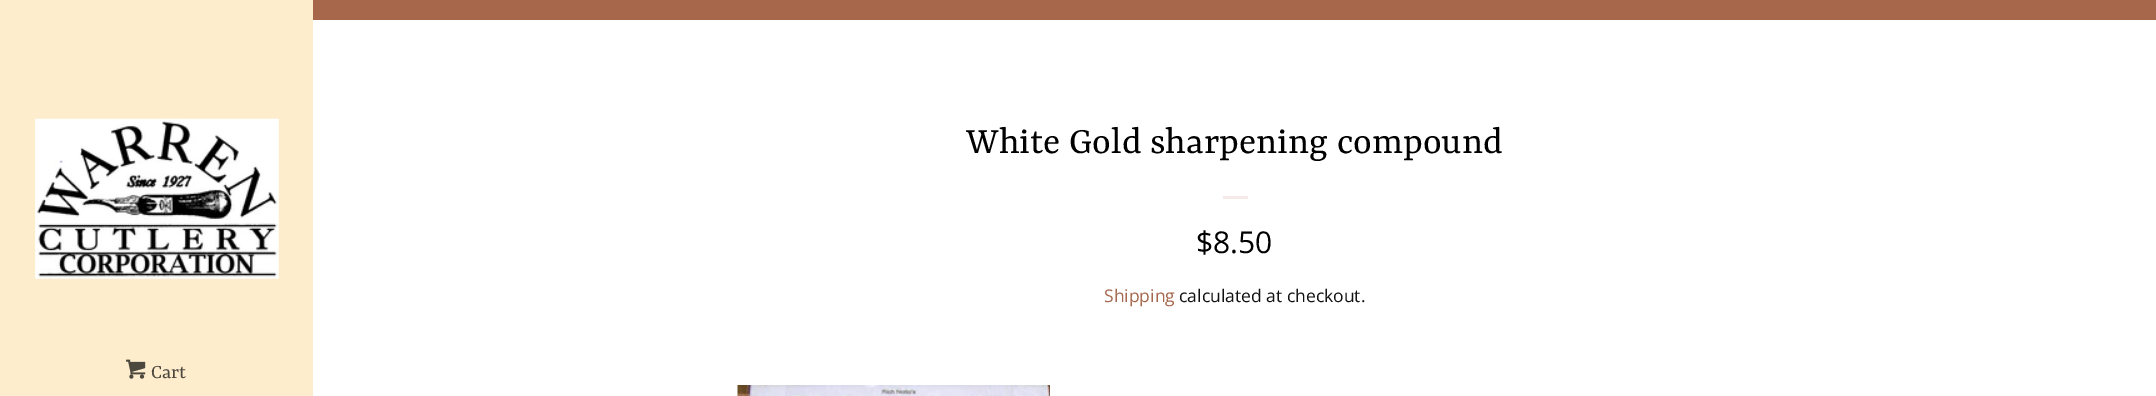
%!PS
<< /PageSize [2156 396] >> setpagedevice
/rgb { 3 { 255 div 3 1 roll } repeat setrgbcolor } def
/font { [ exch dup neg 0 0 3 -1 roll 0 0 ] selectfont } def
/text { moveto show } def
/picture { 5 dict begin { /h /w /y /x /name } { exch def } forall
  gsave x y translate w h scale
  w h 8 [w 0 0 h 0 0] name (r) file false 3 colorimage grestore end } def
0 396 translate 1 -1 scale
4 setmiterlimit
253 237 205 rgb
0 0 2156 396 rectfill
255 255 255 rgb
313 20 1843 376 rectfill
166 103 74 rgb
313 0 1843 20 rectfill
245 234 231 rgb
1223 196 25 3 rectfill
(img_01.rgb) 737 385 313 11 picture
(img_02.rgb) 35 118 244 161 picture
(img_03.rgb) 126 359 20 20 picture
/Rasa-Regular 40 font
0 0 0 rgb
(White Gold sharpening compound) 966 153 text
/OpenSans-Regular 30 font
($8.50) 1196 253 text
/OpenSans-Regular 17.5 font
165 103 77 rgb
(Shipping) 1104 302 text
17 17 17 rgb
(calculated at checkout.) 1179 302 text
/Rasa-Regular 21 font
77 72 62 rgb
(Cart) 151 378 text
showpage
